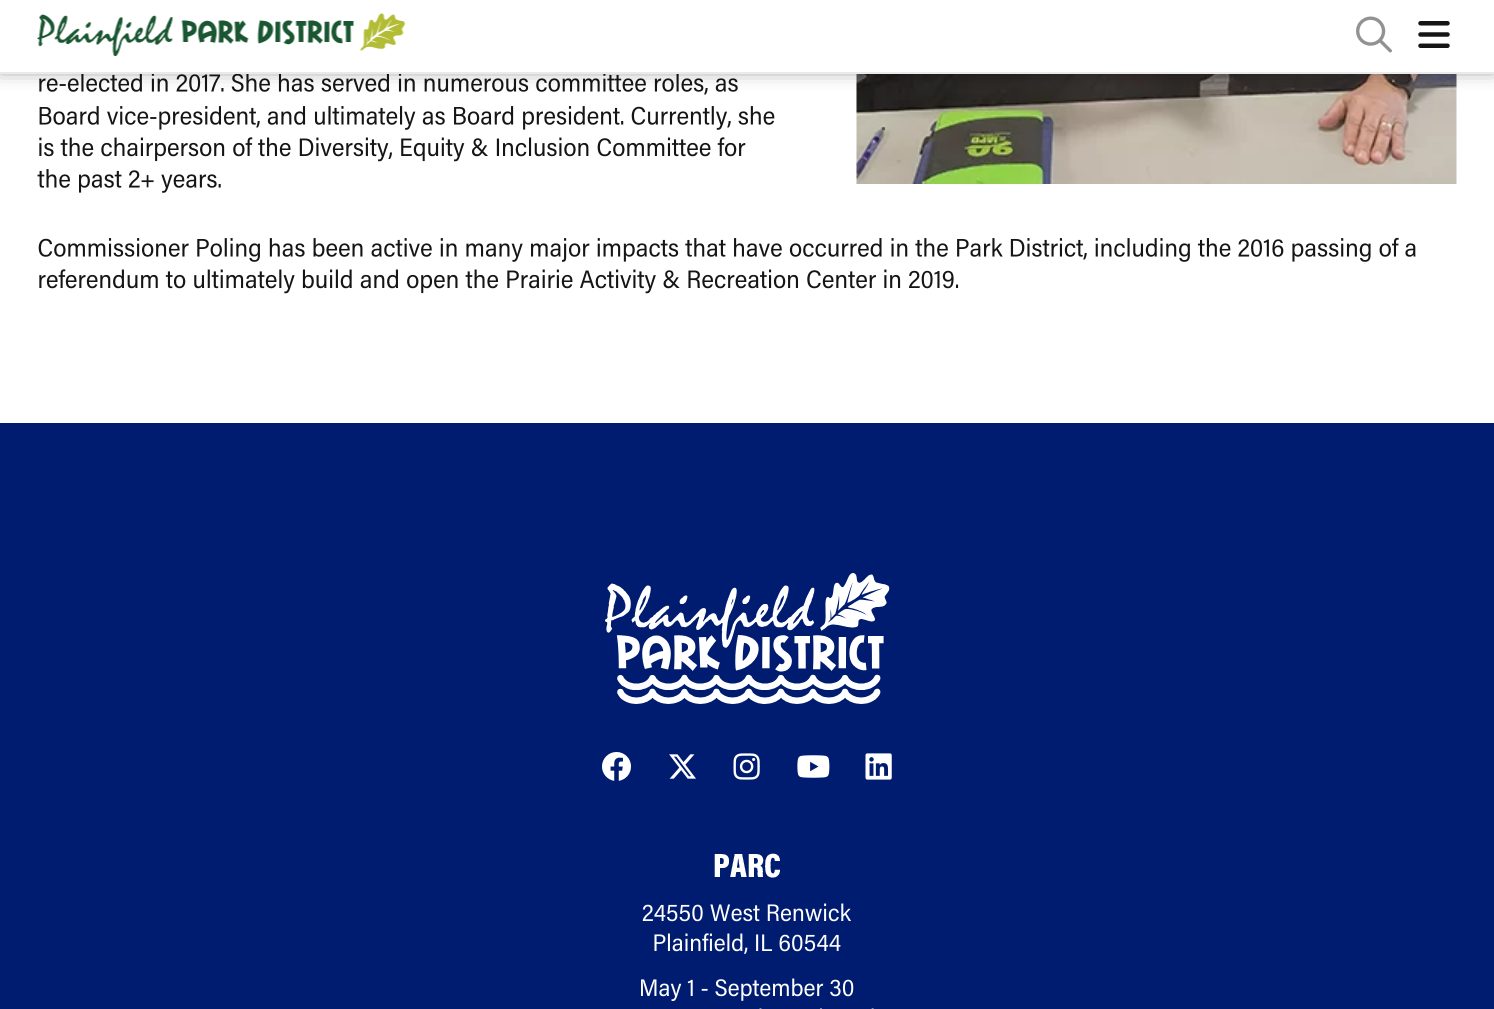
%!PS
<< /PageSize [1494 1009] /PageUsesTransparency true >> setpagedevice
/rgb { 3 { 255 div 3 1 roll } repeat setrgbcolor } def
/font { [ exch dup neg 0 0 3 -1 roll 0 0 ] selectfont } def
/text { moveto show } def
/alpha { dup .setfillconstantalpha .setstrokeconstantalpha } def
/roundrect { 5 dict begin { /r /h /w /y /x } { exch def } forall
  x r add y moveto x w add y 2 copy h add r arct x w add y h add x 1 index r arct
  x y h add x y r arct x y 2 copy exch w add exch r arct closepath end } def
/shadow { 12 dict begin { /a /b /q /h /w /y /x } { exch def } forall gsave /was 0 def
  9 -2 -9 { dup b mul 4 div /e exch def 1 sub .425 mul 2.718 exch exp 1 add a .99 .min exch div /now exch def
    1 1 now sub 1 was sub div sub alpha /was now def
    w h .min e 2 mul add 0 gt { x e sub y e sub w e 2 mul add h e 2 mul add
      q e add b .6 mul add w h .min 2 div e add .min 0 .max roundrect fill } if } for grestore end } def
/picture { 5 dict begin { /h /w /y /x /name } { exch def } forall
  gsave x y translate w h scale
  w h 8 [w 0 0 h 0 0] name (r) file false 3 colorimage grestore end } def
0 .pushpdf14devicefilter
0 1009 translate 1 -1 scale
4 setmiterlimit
255 255 255 rgb
0 0 1494 1009 rectfill
(img_04.rgb) 39 74 699 21 picture
(img_08.rgb) 856 74 601 110 picture
0 0 0 rgb
0 -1 1494 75 0 7.5 0.3 shadow
255 255 255 rgb
0 0 1494 72 rectfill
234 234 234 rgb
0 72 1494 2 rectfill
(img_01.rgb) 37 13 369 43 picture
(img_02.rgb) 1356 16 36 37 picture
(img_03.rgb) 1418 21 32 27 picture
(img_05.rgb) 39 106 736 24 picture
(img_06.rgb) 39 137 707 25 picture
(img_07.rgb) 37 169 184 24 picture
(img_09.rgb) 38 237 1378 25 picture
(img_10.rgb) 39 269 920 25 picture
0 28 113 rgb
0 423 1494 586 rectfill
(img_11.rgb) 605 573 285 131 picture
(img_12.rgb) 602 752 29 29 picture
(img_13.rgb) 669 754 27 25 picture
(img_14.rgb) 733 753 27 27 picture
(img_15.rgb) 797 755 33 23 picture
(img_16.rgb) 865 753 27 27 picture
(img_17.rgb) 642 903 209 19 picture
(img_18.rgb) 654 933 187 21 picture
(img_19.rgb) 641 978 213 23 picture
(img_20.rgb) 759 1008 115 1 picture
/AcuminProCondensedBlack-Black 34 font
255 255 255 rgb
(PARC) 713 877 text
.poppdf14devicefilter showpage
